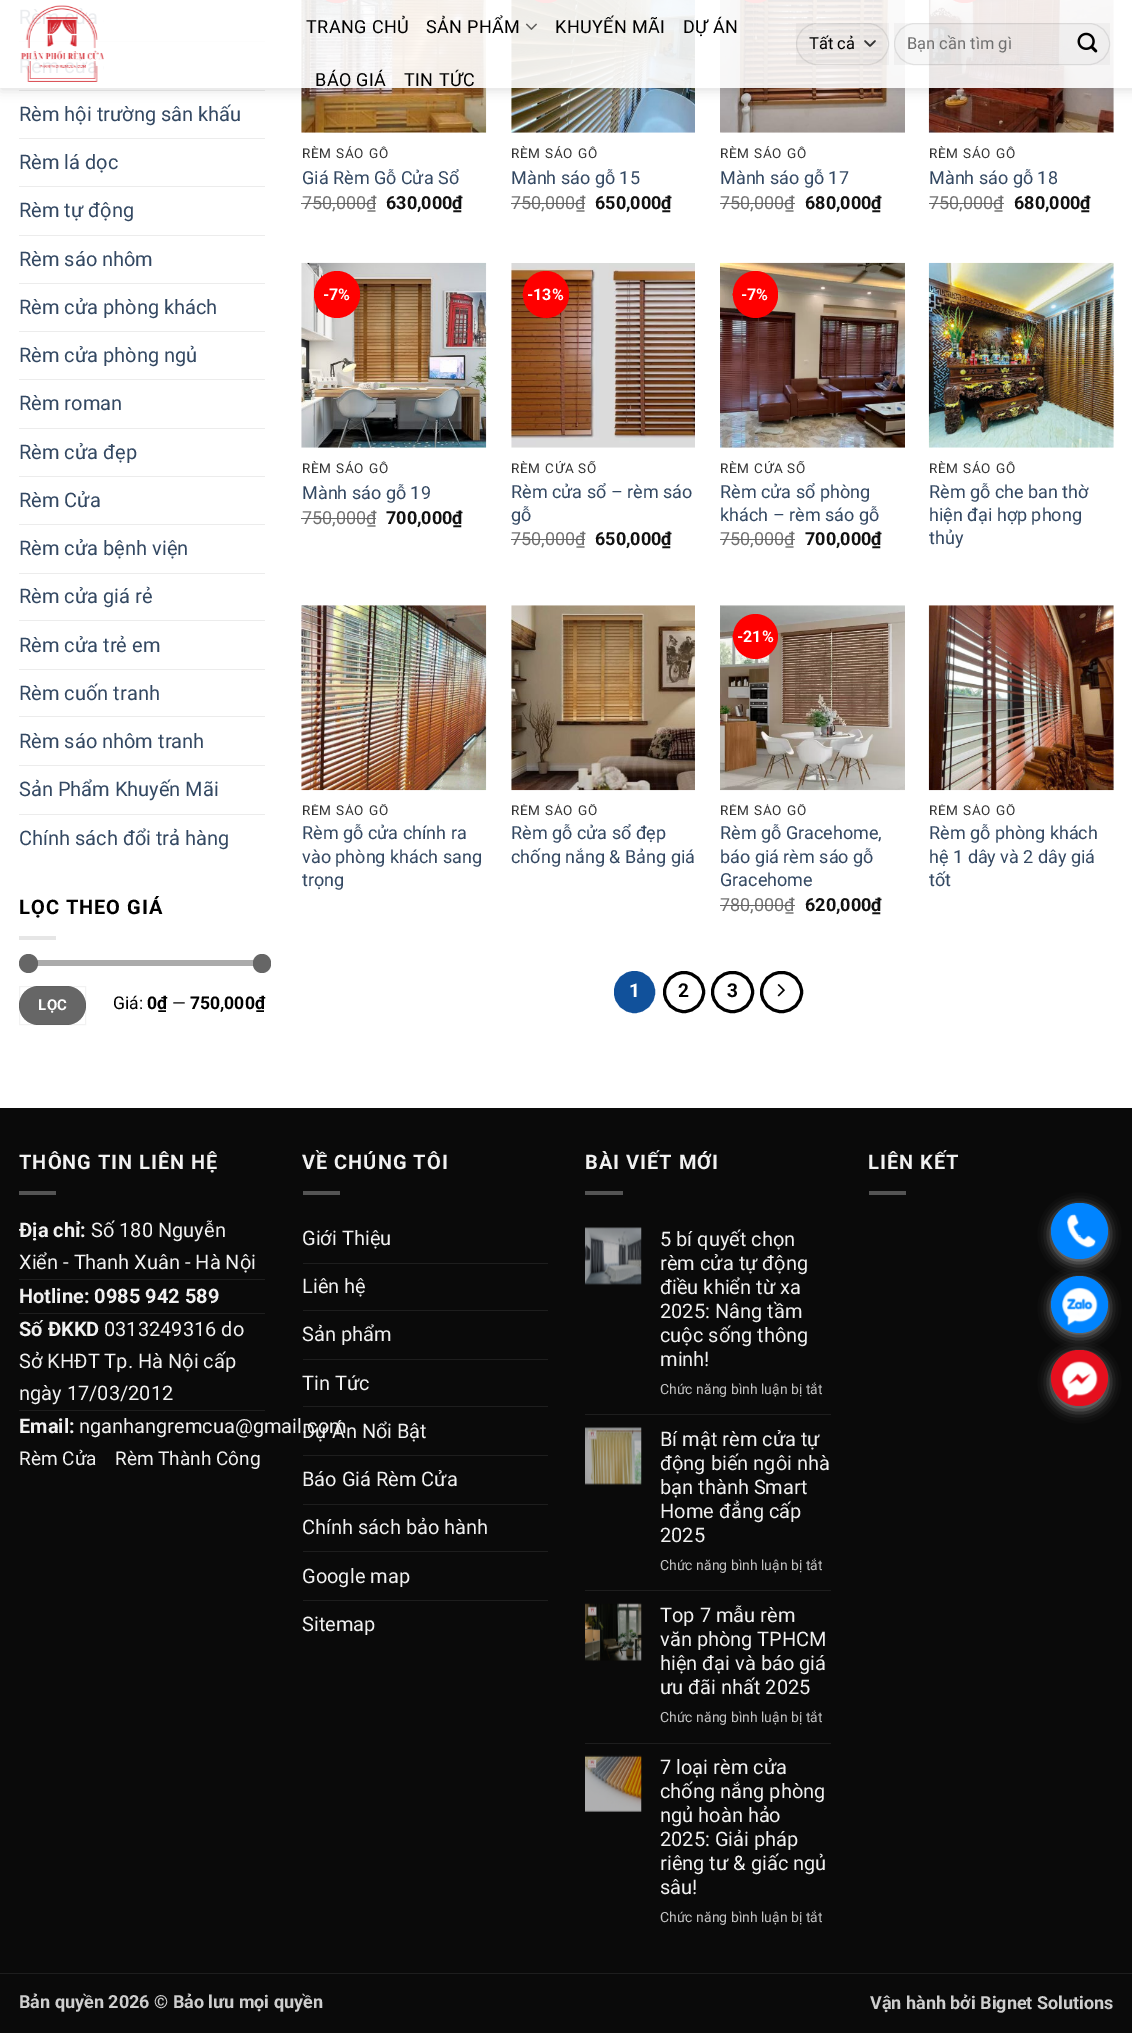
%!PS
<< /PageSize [1132 2033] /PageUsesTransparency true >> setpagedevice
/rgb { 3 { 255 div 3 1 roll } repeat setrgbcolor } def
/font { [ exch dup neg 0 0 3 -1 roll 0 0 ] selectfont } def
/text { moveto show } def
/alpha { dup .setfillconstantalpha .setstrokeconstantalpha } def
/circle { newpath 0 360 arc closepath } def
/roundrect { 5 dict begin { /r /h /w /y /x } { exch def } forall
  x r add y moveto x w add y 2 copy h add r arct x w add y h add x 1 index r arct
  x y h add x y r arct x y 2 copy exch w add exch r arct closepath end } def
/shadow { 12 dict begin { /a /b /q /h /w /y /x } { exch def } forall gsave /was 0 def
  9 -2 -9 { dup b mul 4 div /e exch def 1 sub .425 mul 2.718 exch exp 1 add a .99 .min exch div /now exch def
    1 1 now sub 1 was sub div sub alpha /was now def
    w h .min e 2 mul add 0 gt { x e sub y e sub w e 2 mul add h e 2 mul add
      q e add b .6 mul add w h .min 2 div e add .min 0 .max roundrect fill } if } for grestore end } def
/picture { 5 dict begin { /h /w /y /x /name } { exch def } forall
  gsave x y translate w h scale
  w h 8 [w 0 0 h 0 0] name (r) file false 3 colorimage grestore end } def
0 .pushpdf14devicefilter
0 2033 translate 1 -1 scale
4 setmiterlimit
255 255 255 rgb
0 0 1132 2033 rectfill
236 236 236 rgb
19 41 246 1 rectfill
19 90 246 1 rectfill
(img_04.rgb) 301 0 186 133 picture
255 0 0 rgb
314 -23 46 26 23 roundrect fill
(img_05.rgb) 511 0 184 133 picture
523 -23 46 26 23 roundrect fill
(img_06.rgb) 720 0 185 133 picture
733 -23 45 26 22.5 roundrect fill
(img_07.rgb) 928 0 186 133 picture
941 -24 47 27 23.5 roundrect fill
gsave
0 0 moveto 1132 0 rlineto 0 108 rlineto -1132 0 rlineto closepath 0 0 moveto 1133 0 rlineto 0 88 rlineto -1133 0 rlineto closepath eoclip newpath
0 0 0 rgb
1 1 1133 88 0 6 0.15 shadow
grestore
0.9 alpha
255 255 255 rgb
0 0 1132 88 rectfill
1 alpha
(img_01.rgb) 20 5 84 77 picture
(img_02.rgb) 525 23 12 7 picture
0.03 alpha
0 0 0 rgb
796 23 93 42 rectfill
1 alpha
51 51 51 rgb
1.7 setlinewidth
1 setlinecap
1 setlinejoin
865 41 moveto 5 5 rlineto 5 -5 rlineto stroke
0.09 alpha
0 0 0 rgb
1 setlinewidth
0 setlinecap
0 setlinejoin
796.5 23.5 92 41 20.5 roundrect stroke
0.03 alpha
894 23 216 42 rectfill
0.09 alpha
894.5 23.5 215 41 20.5 roundrect stroke
1 alpha
(img_03.rgb) 1077 32 21 21 picture
236 236 236 rgb
19 138 246 1 rectfill
19 186 246 1 rectfill
19 235 246 1 rectfill
19 283 246 1 rectfill
19 331 246 1 rectfill
19 379 246 1 rectfill
19 428 246 1 rectfill
19 476 246 1 rectfill
19 524 246 1 rectfill
19 573 246 1 rectfill
19 620 246 1 rectfill
19 669 246 1 rectfill
19 716 246 1 rectfill
19 765 246 1 rectfill
19 814 246 1 rectfill
230 230 230 rgb
19 936 37 4 rectfill
241 241 241 rgb
19 960 246 6 3 roundrect fill
0.5 alpha
102 102 102 rgb
19 960 246 6 3 roundrect fill
1 alpha
28.5 963.5 9.5 circle fill
253 954 18 19 9 roundrect fill
19 986 67 39 19.5 roundrect fill
0.05 alpha
0 0 0 rgb
19.5 986.5 66 38 rectstroke
1 alpha
(img_08.rgb) 301 262 186 186 picture
255 0 0 rgb
314 271 46 47 23 roundrect fill
337 287.5 moveto 12.5 0 23 3 23 7 rcurveto 0 4 -10.5 7 -23 7 rcurveto -12.5 0 -23 -3 -23 -7 rcurveto 0 -4 10.5 -7 23 -7 rcurveto closepath fill
(img_09.rgb) 511 263 184 185 picture
523 271 46 47 23 roundrect fill
545.5 287.5 moveto 12.5 0 23 3 23 7 rcurveto 0 4 -10.5 7 -23 7 rcurveto -12.5 0 -23 -3 -23 -7 rcurveto 0 -4 10.5 -7 23 -7 rcurveto closepath fill
(img_10.rgb) 720 262 185 186 picture
733 271 45 47 22.5 roundrect fill
755 287.5 moveto 12.5 0 22.5 3 22.5 7 rcurveto 0 4 -10 7 -22.5 7 rcurveto -12.5 0 -22.5 -3 -22.5 -7 rcurveto 0 -4 10 -7 22.5 -7 rcurveto closepath fill
(img_11.rgb) 928 262 186 186 picture
(img_12.rgb) 301 605 186 186 picture
(img_13.rgb) 511 605 184 186 picture
(img_14.rgb) 720 605 185 186 picture
755.5 636.5 22.5 circle fill
755 628.5 moveto 12.5 0 22.5 3.5 22.5 7.5 rcurveto 0 4 -10 7.5 -22.5 7.5 rcurveto -12.5 0 -22.5 -3.5 -22.5 -7.5 rcurveto 0 -4 10 -7.5 22.5 -7.5 rcurveto closepath fill
(img_15.rgb) 928 605 186 186 picture
17 81 155 rgb
615.5 972.5 38 39 19 roundrect gsave fill grestore
3 setlinewidth
stroke
0 0 0 rgb
684 992 19.5 circle stroke
712.5 972.5 40 39 19.5 roundrect stroke
761.5 972.5 40 39 19.5 roundrect stroke
(img_16.rgb) 777 984 8 13 picture
10 10 10 rgb
0 1108 1132 865 rectfill
84 84 84 rgb
19 1191 37 4 rectfill
30 30 30 rgb
19 1279 246 1 rectfill
19 1313 246 1 rectfill
19 1410 246 1 rectfill
84 84 84 rgb
303 1191 37 4 rectfill
30 30 30 rgb
303 1263 245 1 rectfill
303 1310 245 1 rectfill
303 1359 245 1 rectfill
303 1406 245 1 rectfill
303 1455 245 1 rectfill
303 1504 245 1 rectfill
303 1551 245 1 rectfill
303 1600 245 1 rectfill
84 84 84 rgb
585 1191 38 4 rectfill
(img_17.rgb) 585 1227 57 58 picture
30 30 30 rgb
585 1414 246 1 rectfill
(img_18.rgb) 585 1427 57 58 picture
585 1590 246 1 rectfill
(img_19.rgb) 585 1603 57 58 picture
585 1743 246 1 rectfill
(img_20.rgb) 585 1755 57 57 picture
84 84 84 rgb
869 1191 37 4 rectfill
10 10 10 rgb
0 1974 1132 59 rectfill
30 30 30 rgb
0 1973 1132 1 rectfill
136 136 136 rgb
1051 1206 57 57 28.5 6 1 shadow
0 132 255 rgb
1051 1203 57 56 28 roundrect fill
(img_21.rgb) 1067 1214 29 34 picture
136 136 136 rgb
1051 1280 57 56 28 6 1 shadow
0 132 255 rgb
1079.5 1304.5 28.5 circle fill
(img_22.rgb) 1062 1287 36 39 picture
136 136 136 rgb
1051 1354 57 56 28 6 1 shadow
230 15 30 rgb
1051 1350 57 56 28 roundrect fill
(img_23.rgb) 1062 1361 36 39 picture
/Roboto-Regular 18 font
0 0 0 rgb
306 33 moveto 0.4 0 (TRANG CHỦ) ashow
426 33 moveto 0.4 0 (SẢN PHẨM) ashow
555 33 moveto 0.4 0 (KHUYẾN MÃI) ashow
683 33 moveto 0.4 0 (DỰ ÁN) ashow
315 86 moveto 0.4 0 (BÁO GIÁ) ashow
404 86 moveto 0.4 0 (TIN TỨC) ashow
/Roboto-Regular 16.5 font
(Tất cả) 809 49 text
112 112 112 rgb
(Bạn cần tìm gì) 907 49 text
/Roboto-Regular 20 font
51 72 98 rgb
(Rèm hội trường sân khấu) 19 121 text
(Rèm lá dọc) 19 169 text
(Rèm tự động) 19 217 text
(Rèm sáo nhôm) 19 266 text
(Rèm cửa phòng khách) 19 314 text
(Rèm cửa phòng ngủ) 19 362 text
(Rèm roman) 19 410 text
(Rèm cửa đẹp) 19 459 text
(Rèm Cửa) 19 507 text
(Rèm cửa bệnh viện) 19 555 text
(Rèm cửa giá rẻ) 19 603 text
(Rèm cửa trẻ em) 19 652 text
(Rèm cuốn tranh) 19 700 text
(Rèm sáo nhôm tranh) 19 748 text
(Sản Phẩm Khuyến Mãi) 19 796 text
(Chính sách đổi trả hàng) 19 845 text
/Roboto-Bold 20 font
0 0 0 rgb
19 914 moveto 1 0 (LỌC THEO GIÁ) ashow
/Roboto-Bold 15 font
255 255 255 rgb
38 1010 moveto 0.5 0 (LỌC) ashow
/Roboto-Regular 17.5 font
0 0 0 rgb
(Giá:) 113 1009 text
/Roboto-Bold 17.5 font
(0₫) 147 1009 text
/Roboto-Regular 17.5 font
(—) 172 1009 text
/Roboto-Bold 17.5 font
(750,000₫) 190 1009 text
gsave
301 146 185 17 rectclip
/Roboto-Regular 13.5 font
51 51 51 rgb
302 158 moveto 0.75 0 (RÈM SÁO GỖ) ashow
grestore
/Roboto-Regular 18 font
51 72 98 rgb
(Giá Rèm Gỗ Cửa Sổ) 302 184 text
112 112 112 rgb
(750,000₫) 302 209 text
102 102 102 rgb
301 203 75 1 rectfill
/Roboto-Bold 18 font
17 17 17 rgb
(630,000₫) 386 209 text
gsave
511 146 184 17 rectclip
/Roboto-Regular 13.5 font
51 51 51 rgb
511 158 moveto 0.75 0 (RÈM SÁO GỖ) ashow
grestore
/Roboto-Regular 18 font
51 72 98 rgb
(Mành sáo gỗ 15) 511 184 text
112 112 112 rgb
(750,000₫) 511 209 text
102 102 102 rgb
511 203 74 1 rectfill
/Roboto-Bold 18 font
17 17 17 rgb
(650,000₫) 595 209 text
gsave
720 146 185 17 rectclip
/Roboto-Regular 13.5 font
51 51 51 rgb
720 158 moveto 0.75 0 (RÈM SÁO GỖ) ashow
grestore
/Roboto-Regular 18 font
51 72 98 rgb
(Mành sáo gỗ 17) 720 184 text
112 112 112 rgb
(750,000₫) 720 209 text
102 102 102 rgb
720 203 75 1 rectfill
/Roboto-Bold 18 font
17 17 17 rgb
(680,000₫) 805 209 text
gsave
929 146 185 17 rectclip
/Roboto-Regular 13.5 font
51 51 51 rgb
929 158 moveto 0.75 0 (RÈM SÁO GỖ) ashow
grestore
/Roboto-Regular 18 font
51 72 98 rgb
(Mành sáo gỗ 18) 929 184 text
112 112 112 rgb
(750,000₫) 929 209 text
102 102 102 rgb
929 203 75 1 rectfill
/Roboto-Bold 18 font
17 17 17 rgb
(680,000₫) 1014 209 text
/Roboto-Bold 16 font
255 255 255 rgb
(-7%) 323 300 text
gsave
301 461 185 17 rectclip
/Roboto-Regular 13.5 font
51 51 51 rgb
302 473 moveto 0.75 0 (RÈM SÁO GỖ) ashow
grestore
/Roboto-Regular 18 font
51 72 98 rgb
(Mành sáo gỗ 19) 302 499 text
112 112 112 rgb
(750,000₫) 302 524 text
102 102 102 rgb
301 518 75 1 rectfill
/Roboto-Bold 18 font
17 17 17 rgb
(700,000₫) 386 524 text
/Roboto-Bold 16 font
255 255 255 rgb
(-13%) 527 300 text
gsave
511 461 184 17 rectclip
/Roboto-Regular 13.5 font
51 51 51 rgb
511 473 moveto 0.75 0 (RÈM CỬA SỔ) ashow
grestore
/Roboto-Regular 18 font
51 72 98 rgb
(Rèm cửa sổ – rèm sáo) 511 498 text
(gỗ) 511 521 text
112 112 112 rgb
(750,000₫) 511 545 text
102 102 102 rgb
511 539 74 1 rectfill
/Roboto-Bold 18 font
17 17 17 rgb
(650,000₫) 595 545 text
/Roboto-Bold 16 font
255 255 255 rgb
(-7%) 741 300 text
gsave
720 461 185 17 rectclip
/Roboto-Regular 13.5 font
51 51 51 rgb
720 473 moveto 0.75 0 (RÈM CỬA SỔ) ashow
grestore
/Roboto-Regular 18 font
51 72 98 rgb
(Rèm cửa sổ phòng) 720 498 text
(khách – rèm sáo gỗ) 720 521 text
112 112 112 rgb
(750,000₫) 720 545 text
102 102 102 rgb
720 539 75 1 rectfill
/Roboto-Bold 18 font
17 17 17 rgb
(700,000₫) 805 545 text
gsave
929 461 185 17 rectclip
/Roboto-Regular 13.5 font
51 51 51 rgb
929 473 moveto 0.75 0 (RÈM SÁO GỖ) ashow
grestore
/Roboto-Regular 18 font
51 72 98 rgb
(Rèm gỗ che ban thờ) 929 498 text
(hiện đại hợp phong) 929 521 text
(thủy) 929 544 text
gsave
301 804 185 16 rectclip
/Roboto-Regular 13.5 font
51 51 51 rgb
302 815 moveto 0.75 0 (RÈM SÁO GỖ) ashow
grestore
(Rèm gỗ cửa chính ra) 302 839 text
(vào phòng khách sang) 302 863 text
(trọng) 302 886 text
gsave
511 804 184 16 rectclip
/Roboto-Regular 13.5 font
51 51 51 rgb
511 815 moveto 0.75 0 (RÈM SÁO GỖ) ashow
grestore
(Rèm gỗ cửa sổ đẹp) 511 839 text
(chống nắng & Bảng giá) 511 863 text
/Roboto-Bold 16 font
255 255 255 rgb
(-21%) 737 642 text
gsave
720 804 185 16 rectclip
/Roboto-Regular 13.5 font
51 51 51 rgb
720 815 moveto 0.75 0 (RÈM SÁO GỖ) ashow
grestore
/Roboto-Regular 18 font
51 72 98 rgb
(Rèm gỗ Gracehome,) 720 839 text
(báo giá rèm sáo gỗ) 720 863 text
(Gracehome) 720 886 text
112 112 112 rgb
(780,000₫) 720 911 text
102 102 102 rgb
720 905 75 1 rectfill
/Roboto-Bold 18 font
17 17 17 rgb
(620,000₫) 805 911 text
gsave
929 804 185 16 rectclip
/Roboto-Regular 13.5 font
51 51 51 rgb
929 815 moveto 0.75 0 (RÈM SÁO GỖ) ashow
grestore
/Roboto-Regular 18 font
51 72 98 rgb
(Rèm gỗ phòng khách) 929 839 text
(hệ 1 dây và 2 dây giá) 929 863 text
(tốt) 929 886 text
/Roboto-Bold 19 font
255 255 255 rgb
(1) 629 997 text
0 0 0 rgb
(2) 678 997 text
(3) 727 997 text
/Roboto-Bold 20 font
241 241 241 rgb
19 1169 moveto 1 0 (THÔNG TIN LIÊN HỆ) ashow
(Địa chỉ:) 19 1237 text
/Roboto-Regular 20 font
(Số 180 Nguyễn) 91 1237 text
(Xiển - Thanh Xuân - Hà Nội) 19 1269 text
/Roboto-Bold 20 font
(Hotline: 0985 942 589) 19 1303 text
(Số ĐKKD) 19 1336 text
/Roboto-Regular 20 font
(0313249316 do) 104 1336 text
(Sở KHĐT Tp. Hà Nội cấp) 19 1368 text
(ngày 17/03/2012) 19 1400 text
/Roboto-Bold 20 font
(Email:) 19 1433 text
/Roboto-Regular 20 font
(nganhangremcua@gmail.com) 79 1433 text
/Roboto-Regular 19 font
(Rèm Cửa) 19 1465 text
(Rèm Thành Công) 115 1465 text
/Roboto-Bold 20 font
302 1169 moveto 1 0 (VỀ CHÚNG TÔI) ashow
/Roboto-Regular 20 font
(Giới Thiệu) 302 1245 text
(Liên hệ) 302 1293 text
(Sản phẩm) 302 1341 text
(Tin Tức) 302 1390 text
(Dự Án Nổi Bật) 302 1438 text
(Báo Giá Rèm Cửa) 302 1486 text
(Chính sách bảo hành) 302 1534 text
(Google map) 302 1583 text
(Sitemap) 302 1631 text
/Roboto-Bold 20 font
585 1169 moveto 1 0 (BÀI VIẾT MỚI) ashow
/Roboto-Regular 20 font
(5 bí quyết chọn) 660 1246 text
(rèm cửa tự động) 660 1270 text
(điều khiển từ xa) 660 1294 text
(2025: Nâng tầm) 660 1318 text
(cuộc sống thông) 660 1342 text
(minh!) 660 1366 text
/Roboto-Regular 14 font
195 195 195 rgb
(Chức năng bình luận bị tắt) 660 1394 text
/Roboto-Regular 20 font
241 241 241 rgb
(Bí mật rèm cửa tự) 660 1446 text
(động biến ngôi nhà) 660 1470 text
(bạn thành Smart) 660 1494 text
(Home đẳng cấp) 660 1518 text
(2025) 660 1542 text
/Roboto-Regular 14 font
195 195 195 rgb
(Chức năng bình luận bị tắt) 660 1570 text
/Roboto-Regular 20 font
241 241 241 rgb
(Top 7 mẫu rèm) 660 1622 text
(văn phòng TPHCM) 660 1646 text
(hiện đại và báo giá) 660 1670 text
(ưu đãi nhất 2025) 660 1694 text
/Roboto-Regular 14 font
195 195 195 rgb
(Chức năng bình luận bị tắt) 660 1722 text
/Roboto-Regular 20 font
241 241 241 rgb
(7 loại rèm cửa) 660 1774 text
(chống nắng phòng) 660 1798 text
(ngủ hoàn hảo) 660 1822 text
(2025: Giải pháp) 660 1846 text
(riêng tư & giấc ngủ) 660 1870 text
(sâu!) 660 1894 text
/Roboto-Regular 14 font
195 195 195 rgb
(Chức năng bình luận bị tắt) 660 1922 text
/Roboto-Bold 20 font
241 241 241 rgb
868 1169 moveto 1 0 (LIÊN KẾT) ashow
/Roboto-Bold 18 font
206 206 206 rgb
(Bản quyền 2026 © Bảo lưu mọi quyền) 19 2008 text
(Vận hành bởi Bignet Solutions) 870 2009 text
/Roboto-Regular 20 font
141 200 255 rgb
(.) 1077 1237 text
.poppdf14devicefilter showpage
